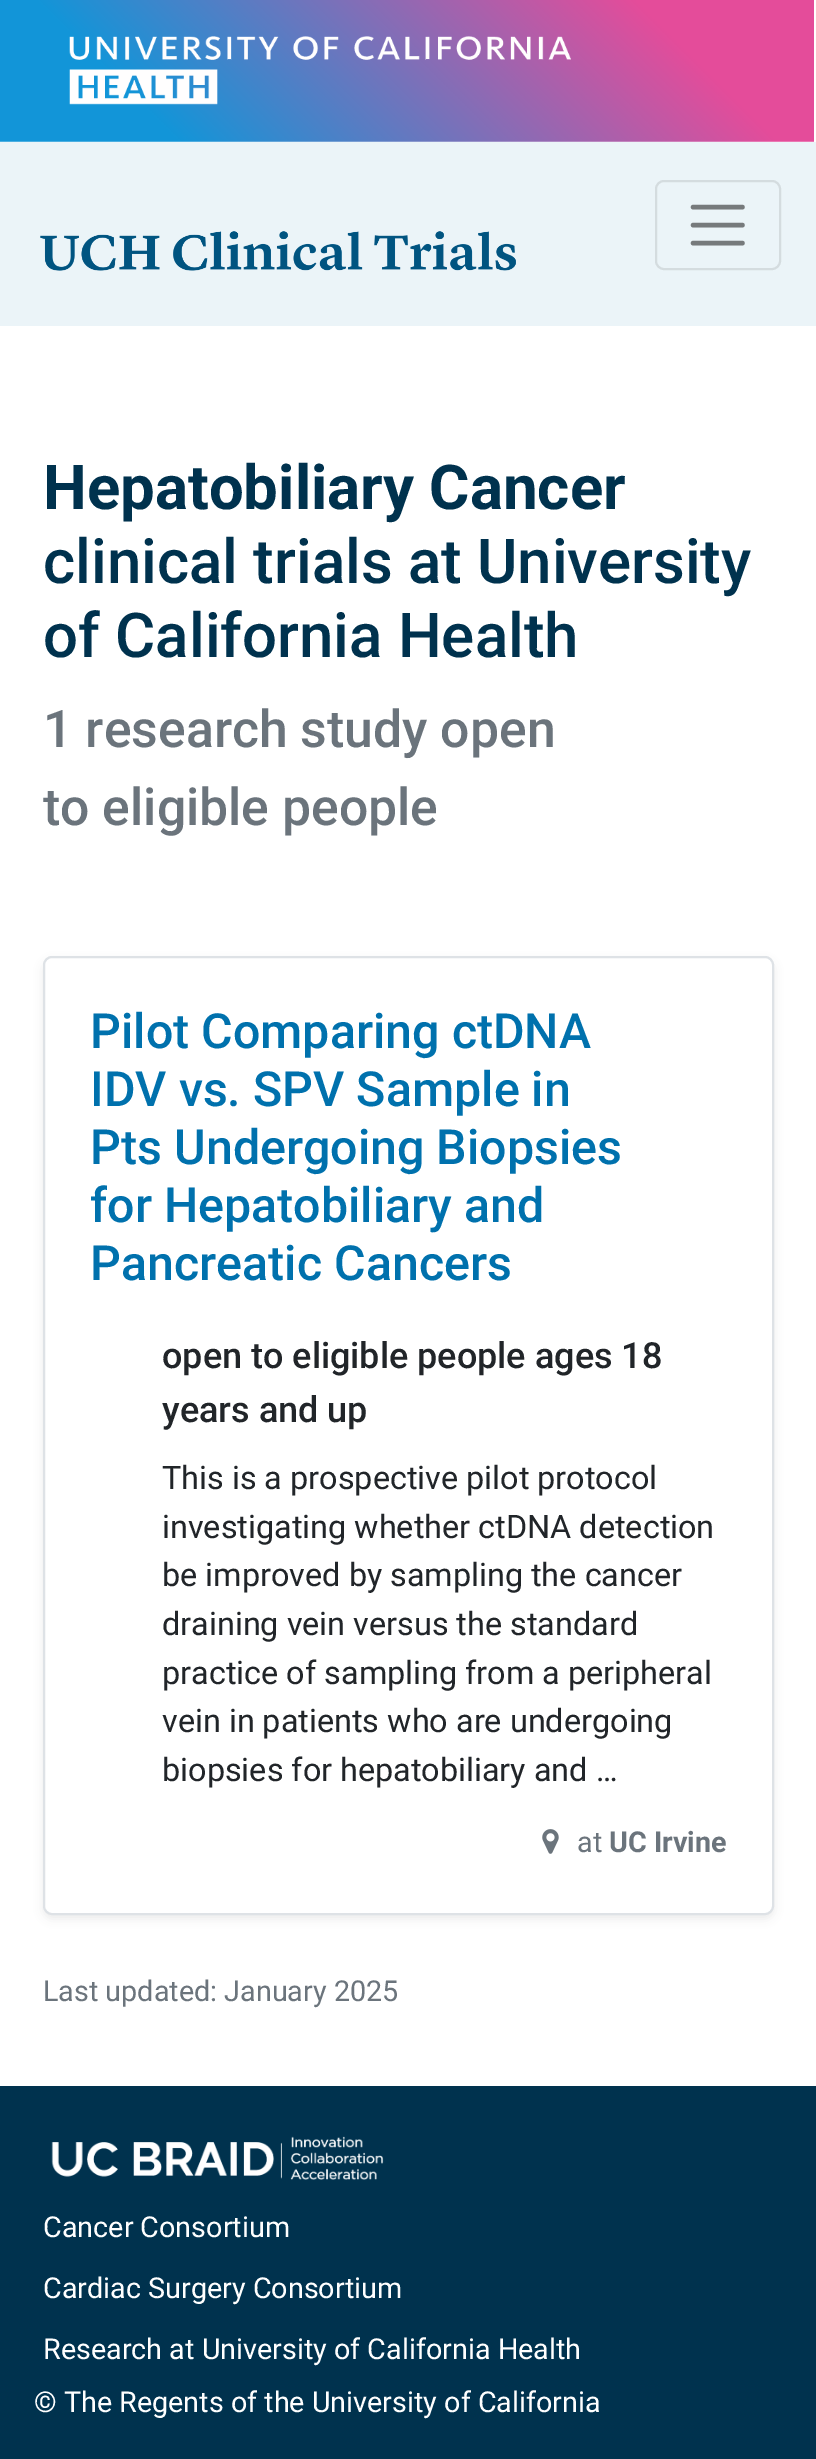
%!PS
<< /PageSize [816 2459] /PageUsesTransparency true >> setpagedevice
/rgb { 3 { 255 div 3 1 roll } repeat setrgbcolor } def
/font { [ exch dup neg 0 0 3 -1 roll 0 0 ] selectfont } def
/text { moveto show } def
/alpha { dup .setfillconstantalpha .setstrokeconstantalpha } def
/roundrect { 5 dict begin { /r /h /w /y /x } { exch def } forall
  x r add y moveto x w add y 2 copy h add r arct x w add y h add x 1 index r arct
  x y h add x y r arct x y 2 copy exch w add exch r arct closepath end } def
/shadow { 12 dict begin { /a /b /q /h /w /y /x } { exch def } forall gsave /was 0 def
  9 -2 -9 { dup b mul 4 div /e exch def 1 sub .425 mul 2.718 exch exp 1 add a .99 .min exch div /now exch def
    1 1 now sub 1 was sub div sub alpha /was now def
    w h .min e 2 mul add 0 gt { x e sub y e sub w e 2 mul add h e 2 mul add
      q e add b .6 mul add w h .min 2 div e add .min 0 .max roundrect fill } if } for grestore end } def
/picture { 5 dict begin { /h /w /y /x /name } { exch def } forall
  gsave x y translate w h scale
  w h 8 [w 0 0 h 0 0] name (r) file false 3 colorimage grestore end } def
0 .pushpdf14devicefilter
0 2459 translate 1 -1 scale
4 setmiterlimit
255 255 255 rgb
0 0 816 2459 rectfill
(img_01.rgb) 0 0 814 142 picture
(img_02.rgb) 69 36 502 69 picture
235 244 248 rgb
0 142 816 184 rectfill
(img_03.rgb) 40 231 476 40 picture
212 220 223 rgb
2 setlinewidth
656 181 124 88 8 roundrect stroke
118 122 124 rgb
4.5 setlinewidth
1 setlinecap
693 207 moveto 49.5 0 rlineto 693 225 moveto 49.5 0 rlineto 693 243 moveto 49.5 0 rlineto stroke
0 0 0 rgb
43 961 731 958 9 4.5 0.07 shadow
255 255 255 rgb
44 957 729 957 8 roundrect gsave fill grestore
222 226 230 rgb
2 setlinewidth
0 setlinecap
stroke
(img_04.rgb) 542 1829 17 25 picture
0 50 78 rgb
0 2086 816 373 rectfill
(img_05.rgb) 51 2136 333 44 picture
/Roboto-Bold 61.75 font
(Hepatobiliary Cancer) 43 509 text
/Roboto-Medium 61.75 font
(clinical trials at University) 43 583 text
(of California Health) 43 657 text
/Roboto-Medium 51.75 font
107 116 124 rgb
(1 research study open) 43 747 text
(to eligible people) 43 825 text
/Roboto-Medium 48.4 font
0 113 173 rgb
(Pilot Comparing ctDNA) 90 1048 text
(IDV vs. SPV Sample in) 90 1106 text
(Pts Undergoing Biopsies) 90 1164 text
(for Hepatobiliary and) 90 1222 text
(Pancreatic Cancers) 90 1280 text
/Roboto-Medium 36 font
33 37 41 rgb
(open to eligible people ages 18) 162 1368 text
(years and up) 162 1422 text
/Roboto-Regular 32.4 font
(This is a prospective pilot protocol) 162 1489 text
(investigating whether ctDNA detection) 162 1538 text
(be improved by sampling the cancer) 162 1586 text
(draining vein versus the standard) 162 1635 text
(practice of sampling from a peripheral) 162 1684 text
(vein in patients who are undergoing) 162 1732 text
(biopsies for hepatobiliary and …) 162 1781 text
/Roboto-Regular 28.75 font
107 116 124 rgb
(at) 577 1852 text
/Roboto-Bold 28.75 font
(UC Irvine) 609 1852 text
/Roboto-Regular 28.75 font
(Last updated: January 2025) 43 2001 text
255 255 255 rgb
(Cancer Consortium) 43 2237 text
(Cardiac Surgery Consortium) 43 2298 text
(Research at University of California Health) 43 2359 text
(© The Regents of the University of California) 34 2412 text
.poppdf14devicefilter showpage
